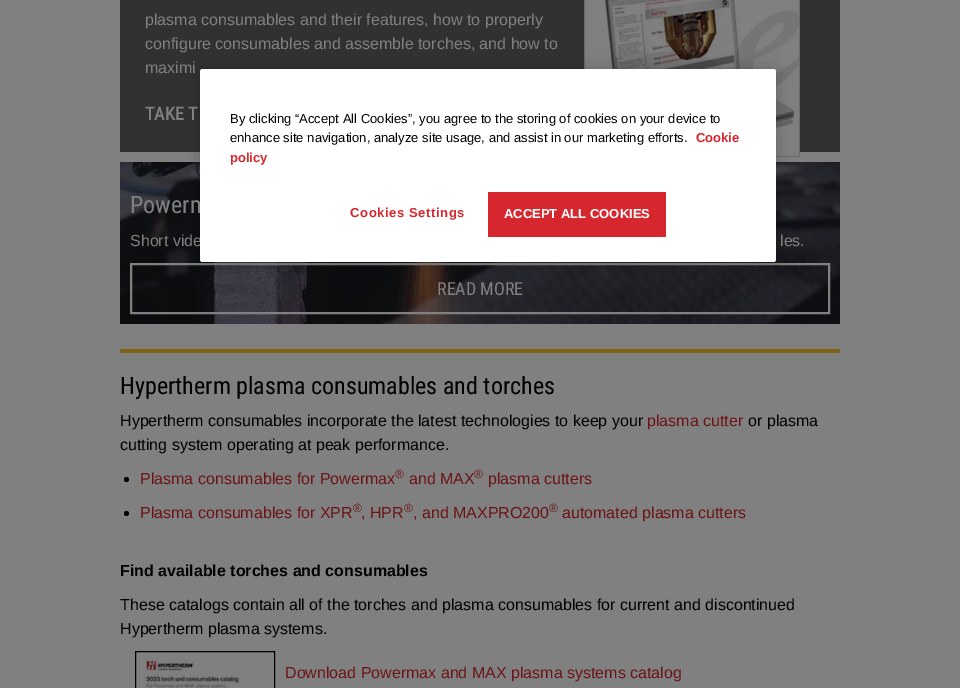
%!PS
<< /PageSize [960 688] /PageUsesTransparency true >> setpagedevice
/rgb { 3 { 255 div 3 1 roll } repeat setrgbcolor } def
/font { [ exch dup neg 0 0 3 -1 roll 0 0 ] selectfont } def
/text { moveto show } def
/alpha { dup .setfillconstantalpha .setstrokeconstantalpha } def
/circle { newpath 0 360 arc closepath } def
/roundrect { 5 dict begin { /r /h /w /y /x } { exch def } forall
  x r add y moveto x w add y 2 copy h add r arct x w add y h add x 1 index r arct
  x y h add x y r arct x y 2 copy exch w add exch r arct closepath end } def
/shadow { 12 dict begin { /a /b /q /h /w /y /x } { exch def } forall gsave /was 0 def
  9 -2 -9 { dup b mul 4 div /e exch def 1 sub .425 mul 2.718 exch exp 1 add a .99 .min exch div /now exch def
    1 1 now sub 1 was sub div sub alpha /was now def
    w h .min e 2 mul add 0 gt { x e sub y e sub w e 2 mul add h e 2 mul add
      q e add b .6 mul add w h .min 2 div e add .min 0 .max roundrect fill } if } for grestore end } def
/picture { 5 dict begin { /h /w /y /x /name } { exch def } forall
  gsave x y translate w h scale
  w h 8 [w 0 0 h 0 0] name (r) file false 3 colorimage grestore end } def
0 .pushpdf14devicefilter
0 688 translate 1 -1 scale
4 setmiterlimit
128 128 128 rgb
0 0 960 688 rectfill
49 49 49 rgb
120 0 720 152 rectfill
(img_01.rgb) 584 0 216 157 picture
(img_02.rgb) 120 162 720 162 picture
128 128 128 rgb
2 setlinewidth
131 264 698 49 rectstroke
128 99 21 rgb
120 349 720 4 rectfill
0 0 0 rgb
126.5 479.5 2.5 circle fill
126.5 513.5 2.5 circle fill
1 setlinewidth
135.5 651.5 139 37 rectstroke
(img_03.rgb) 144 659 95 29 picture
200 69 576 193 2.5 9 0.2 shadow
/LiberationSans-Regular 16 font
128 128 128 rgb
(plasma consumables and their features, how to properly) 145 25 text
(configure consumables and assemble torches, and how to) 145 49 text
(maximi) 145 73 text
/RobotoCondensed-Bold 18 font
(TAKE T) 145 120 text
/RobotoCondensed-Regular 24 font
(Powerm) 130 213 text
/LiberationSans-Regular 16 font
(Short vide) 130 246 text
(les.) 780 246 text
/RobotoCondensed-Regular 18 font
(READ MORE) 437 295 text
/RobotoCondensed-Regular 24 font
0 0 0 rgb
(Hypertherm plasma consumables and torches) 120 394 text
/LiberationSans-Regular 16 font
(Hypertherm consumables incorporate the latest technologies to keep your) 120 426 text
107 20 23 rgb
(plasma cutter) 647 426 text
0 0 0 rgb
(or plasma) 748 426 text
(cutting system operating at peak performance.) 120 450 text
107 20 23 rgb
(Plasma consumables for Powermax) 140 484 text
/LiberationSans-Regular 12 font
(®) 395 478 text
/LiberationSans-Regular 16 font
(and MAX) 409 484 text
/LiberationSans-Regular 12 font
(®) 474 478 text
/LiberationSans-Regular 16 font
(plasma cutters) 488 484 text
(Plasma consumables for XPR) 140 518 text
/LiberationSans-Regular 12 font
(®) 353 512 text
/LiberationSans-Regular 16 font
(, HPR) 361 518 text
/LiberationSans-Regular 12 font
(®) 404 512 text
/LiberationSans-Regular 16 font
(, and MAXPRO200) 413 518 text
/LiberationSans-Regular 12 font
(®) 549 512 text
/LiberationSans-Regular 16 font
(automated plasma cutters) 562 518 text
/LiberationSans-Bold 16 font
0 0 0 rgb
(Find available torches and consumables) 120 576 text
/LiberationSans-Regular 16 font
(These catalogs contain all of the torches and plasma consumables for current and discontinued) 120 610 text
(Hypertherm plasma systems.) 120 634 text
107 20 23 rgb
(Download Powermax and MAX plasma systems catalog) 285 678 text
255 255 255 rgb
200 69 576 193 2.5 roundrect fill
/LiberationSans-Regular 13 font
0 0 0 rgb
(By clicking “Accept All Cookies”, you agree to the storing of cookies on your device to) 230 123 text
(enhance site navigation, analyze site usage, and assist in our marketing efforts.) 230 142 text
/LiberationSans-Bold 13 font
214 39 46 rgb
(Cookie) 696 142 text
(policy) 230 162 text
350 217 moveto 0.6 0 (Cookies Settings) ashow
488 192 178 45 rectfill
255 255 255 rgb
(ACCEPT ALL COOKIES) 504 218 text
.poppdf14devicefilter showpage
